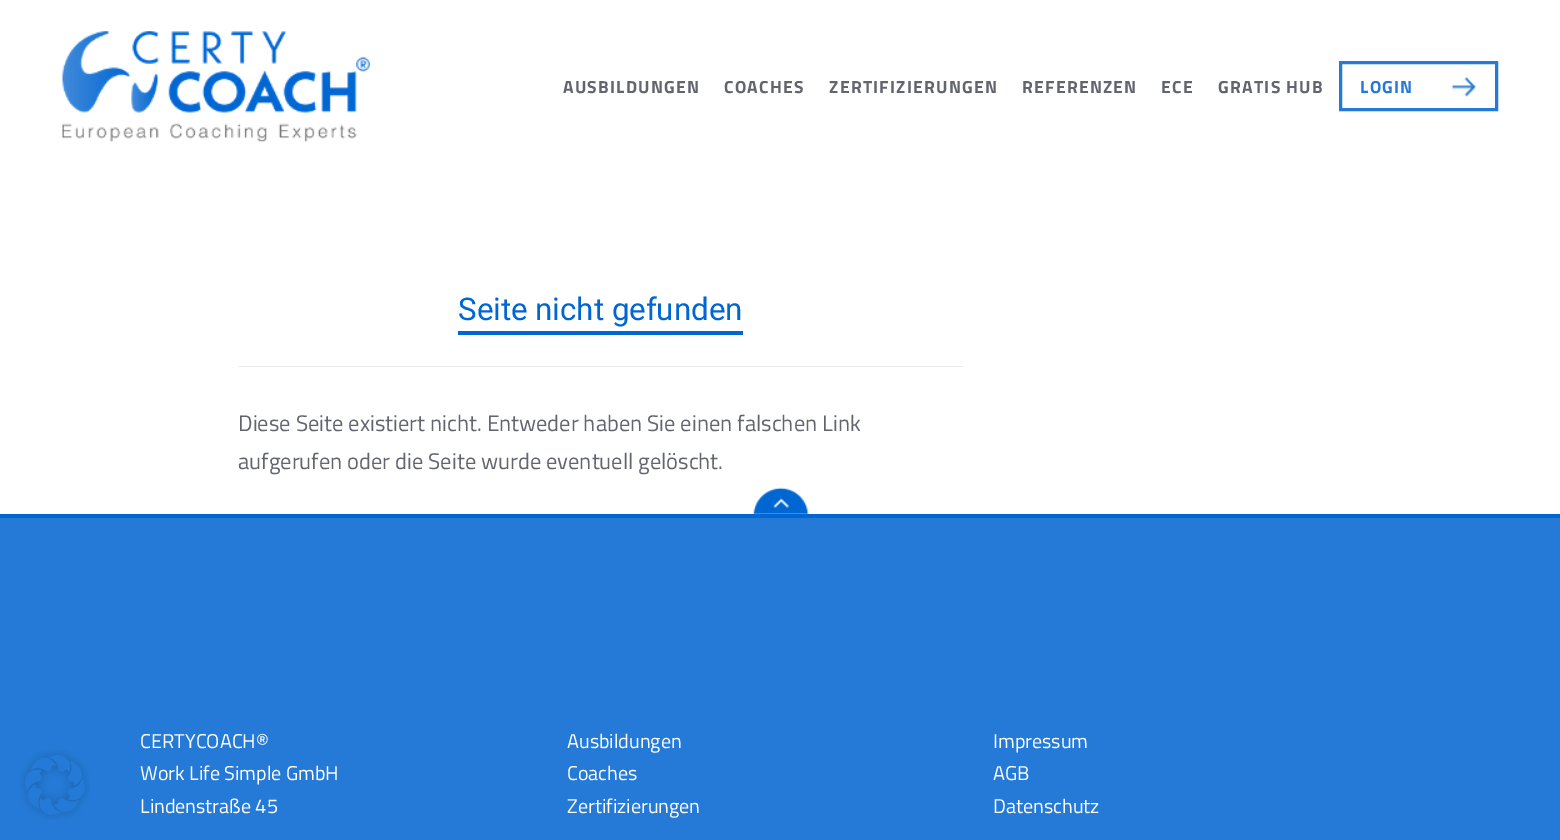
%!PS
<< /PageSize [1560 840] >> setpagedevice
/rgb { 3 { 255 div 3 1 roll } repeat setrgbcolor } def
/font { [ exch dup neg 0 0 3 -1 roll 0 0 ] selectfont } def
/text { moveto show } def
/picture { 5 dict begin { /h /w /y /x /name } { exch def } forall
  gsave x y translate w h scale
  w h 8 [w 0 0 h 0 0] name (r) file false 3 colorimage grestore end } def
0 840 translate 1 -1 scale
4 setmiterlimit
255 255 255 rgb
0 0 1560 840 rectfill
36 122 214 rgb
0 518 1560 322 rectfill
(img_01.rgb) 20 750 70 70 picture
(img_02.rgb) 62 31 308 111 picture
3 setlinewidth
1340.5 62.5 156 47 rectstroke
(img_03.rgb) 1451 77 26 20 picture
235 235 235 rgb
238 366 725 1 rectfill
0 102 210 rgb
458 331 285 4 rectfill
0 514 1560 4 rectfill
(img_04.rgb) 753 487 56 27 picture
/TitilliumWeb-Bold 17.5 font
98 101 111 rgb
563 93 moveto 1.25 0 (AUSBILDUNGEN) ashow
724 93 moveto 1.25 0 (COACHES) ashow
829 93 moveto 1.25 0 (ZERTIFIZIERUNGEN) ashow
1022 93 moveto 1.25 0 (REFERENZEN) ashow
1161 93 moveto 1.25 0 (ECE) ashow
1218 93 moveto 1.25 0 (GRATIS HUB) ashow
36 122 214 rgb
1360 93 moveto 1.25 0 (LOGIN) ashow
/Roboto-Regular 31.25 font
0 102 210 rgb
(Seite nicht gefunden) 458 320 text
/TitilliumWeb-Regular 22.5 font
98 101 111 rgb
(Diese Seite existiert nicht. Entweder haben Sie einen falschen Link) 238 431 text
(aufgerufen oder die Seite wurde eventuell gelöscht.) 238 469 text
/TitilliumWeb-Regular 20 font
255 255 255 rgb
(CERTYCOACH®) 140 748 text
(Work Life Simple GmbH) 140 780 text
(Lindenstraße 45) 140 813 text
(Ausbildungen) 567 748 text
(Coaches) 567 780 text
(Zertifizierungen) 567 813 text
(Impressum) 993 748 text
(AGB) 993 780 text
(Datenschutz) 993 813 text
showpage
